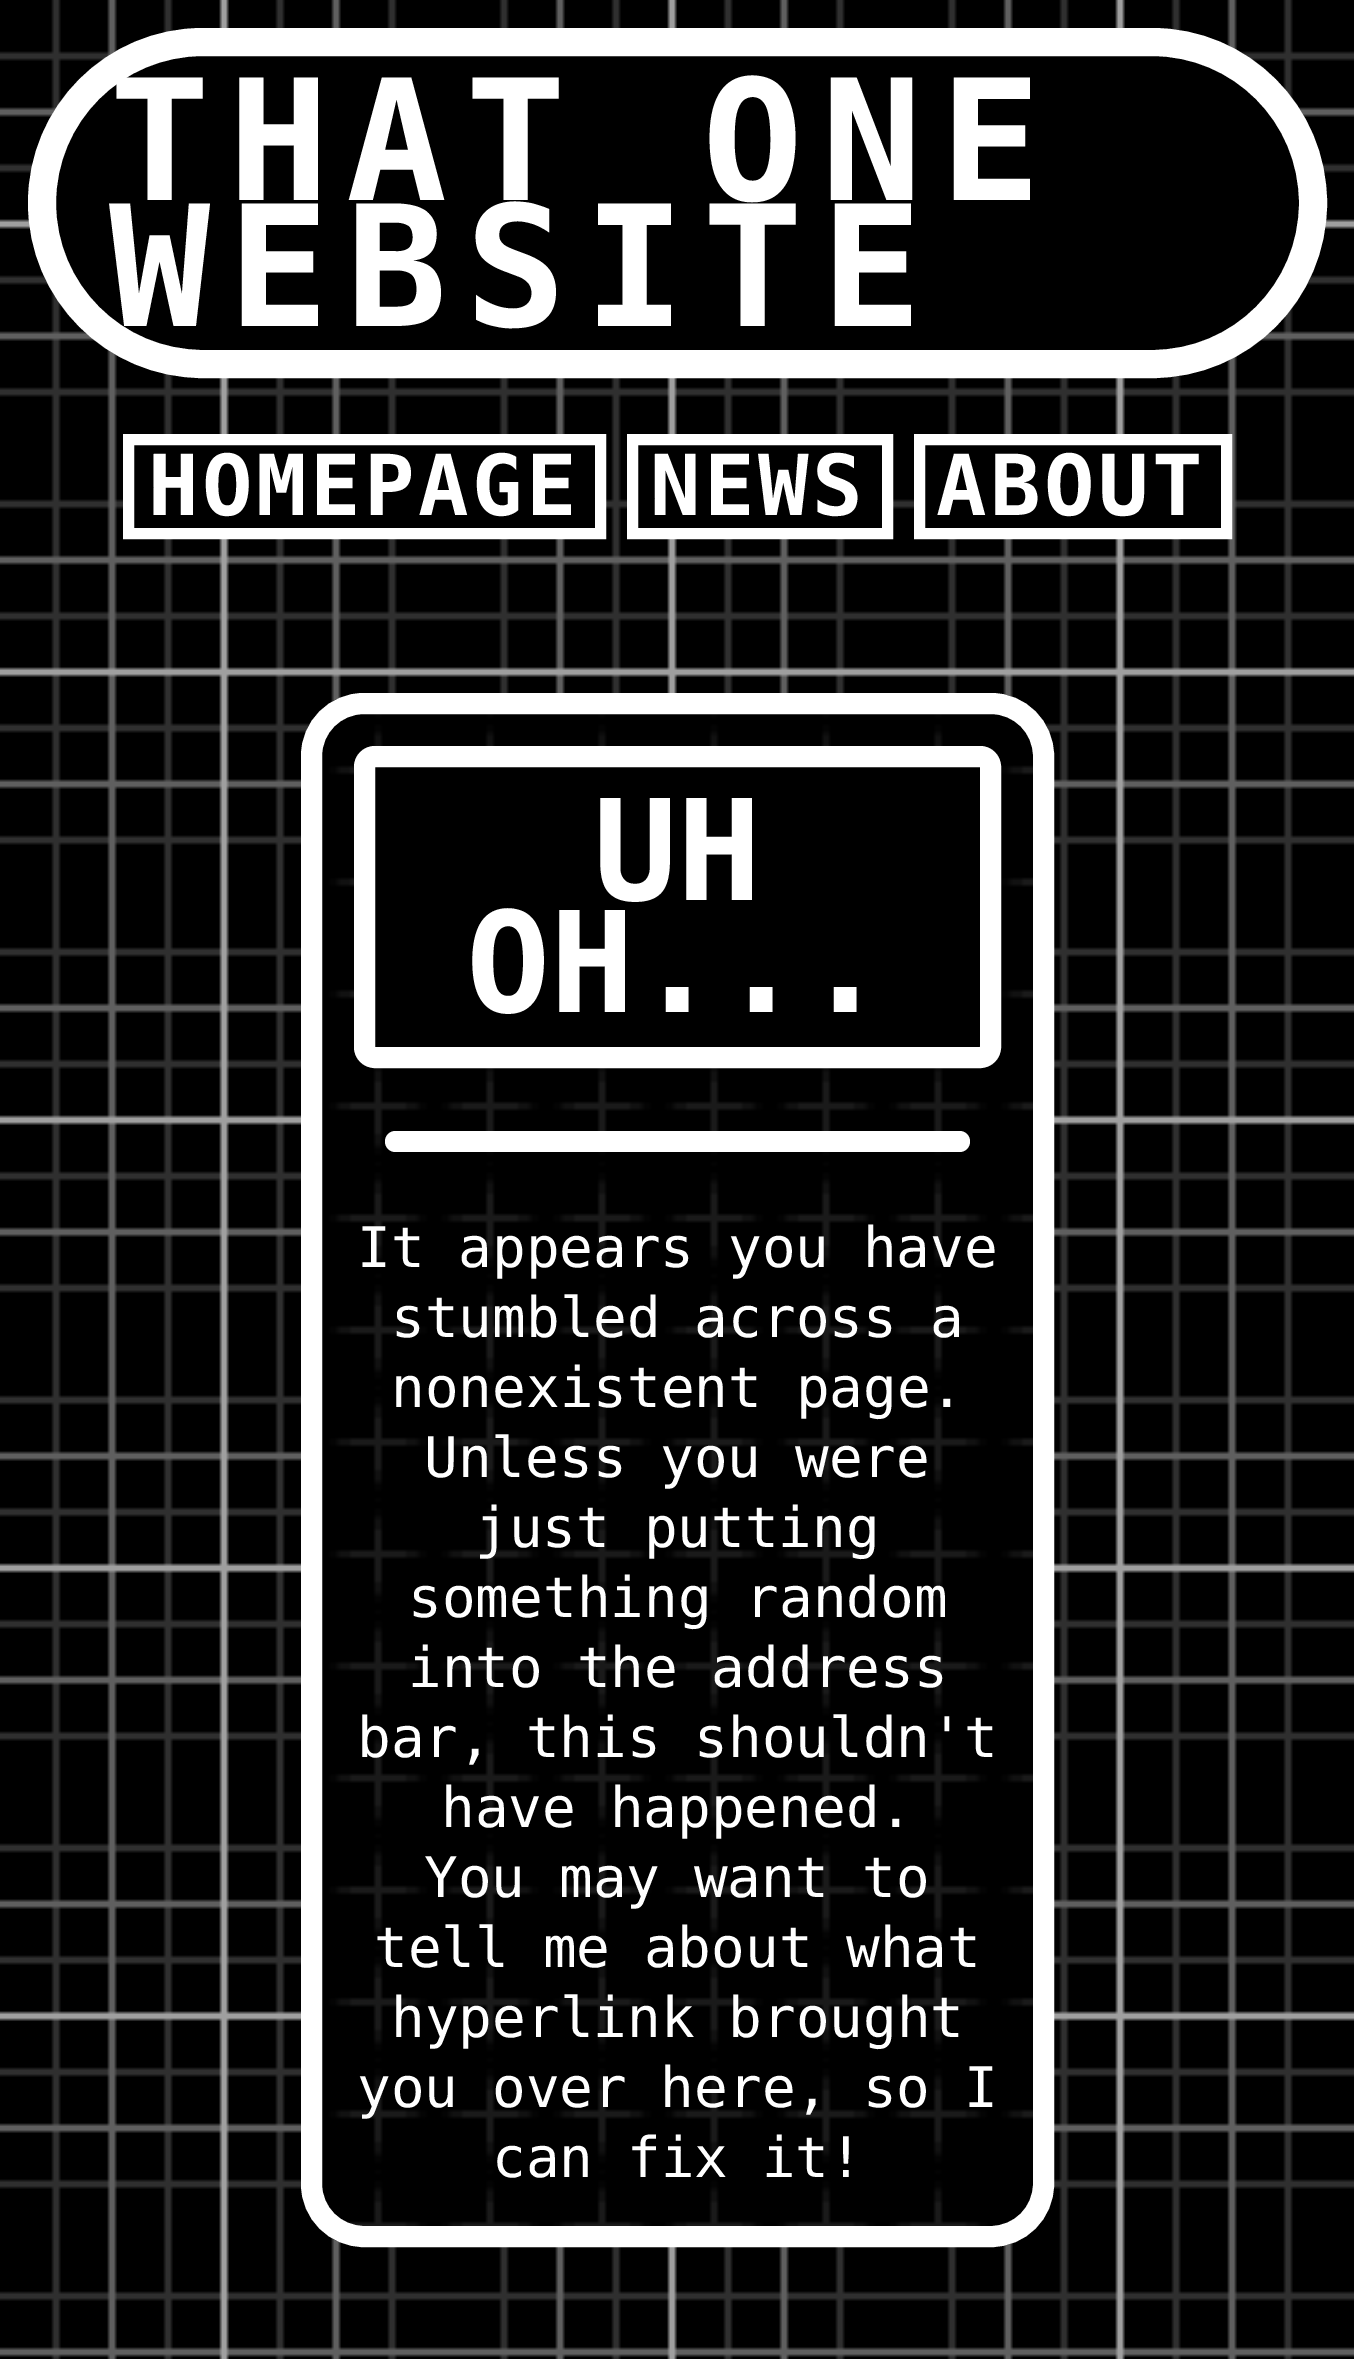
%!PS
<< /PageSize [1354 2359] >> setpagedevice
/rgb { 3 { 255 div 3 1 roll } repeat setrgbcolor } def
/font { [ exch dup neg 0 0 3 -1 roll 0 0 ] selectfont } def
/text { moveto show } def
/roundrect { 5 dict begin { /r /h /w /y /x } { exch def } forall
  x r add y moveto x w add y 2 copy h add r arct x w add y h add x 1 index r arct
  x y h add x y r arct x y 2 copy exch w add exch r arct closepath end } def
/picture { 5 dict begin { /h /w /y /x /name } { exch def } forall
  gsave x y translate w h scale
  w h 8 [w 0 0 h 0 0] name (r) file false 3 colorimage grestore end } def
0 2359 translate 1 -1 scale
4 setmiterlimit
255 255 255 rgb
0 0 1354 2359 rectfill
(img_01.rgb) 0 0 1354 2359 picture
0 0 0 rgb
42 42 1271 322 161 roundrect gsave fill grestore
255 255 255 rgb
28 setlinewidth
stroke
0 0 0 rgb
128.5 439.5 moveto 472 0 rlineto 0 94 rlineto -472 0 rlineto closepath gsave fill grestore
255 255 255 rgb
11 setlinewidth
stroke
0 0 0 rgb
632.5 439.5 moveto 255 0 rlineto 0 94 rlineto -255 0 rlineto closepath gsave fill grestore
255 255 255 rgb
stroke
0 0 0 rgb
919.5 439.5 moveto 307 0 rlineto 0 94 rlineto -307 0 rlineto closepath gsave fill grestore
255 255 255 rgb
stroke
(img_02.rgb) 301 693 753 1554 picture
21 setlinewidth
311.5 703.5 732 1533 52.5 roundrect stroke
0 0 0 rgb
364.5 756.5 626 301 10.5 roundrect gsave fill grestore
255 255 255 rgb
stroke
385 1131 585 21 10.5 roundrect fill
/DejaVuSansMono-Bold 168 font
109 200 moveto 17.5 0 (THAT ONE) ashow
109 326 moveto 17.5 0 (WEBSITE) ashow
/DejaVuSansMono-Bold 84 font
148 515 moveto 3.5 0 (HOMEPAGE) ashow
650 515 moveto 3.5 0 (NEWS) ashow
936 515 moveto 3.5 0 (ABOUT) ashow
/DejaVuSansMono-Bold 140 font
(UH) 593 900 text
(OH...) 466 1012 text
/DejaVuSansMono-Regular 56 font
(It appears you have) 357 1267 text
(stumbled across a) 391 1337 text
(nonexistent page.) 391 1407 text
(Unless you were) 424 1477 text
(just putting) 475 1547 text
(something random) 408 1617 text
(into the address) 408 1687 text
(bar, this shouldn't) 357 1757 text
(have happened.) 441 1827 text
(You may want to) 424 1897 text
(tell me about what) 374 1967 text
(hyperlink brought) 391 2037 text
(you over here, so I) 357 2107 text
(can fix it!) 492 2177 text
showpage
